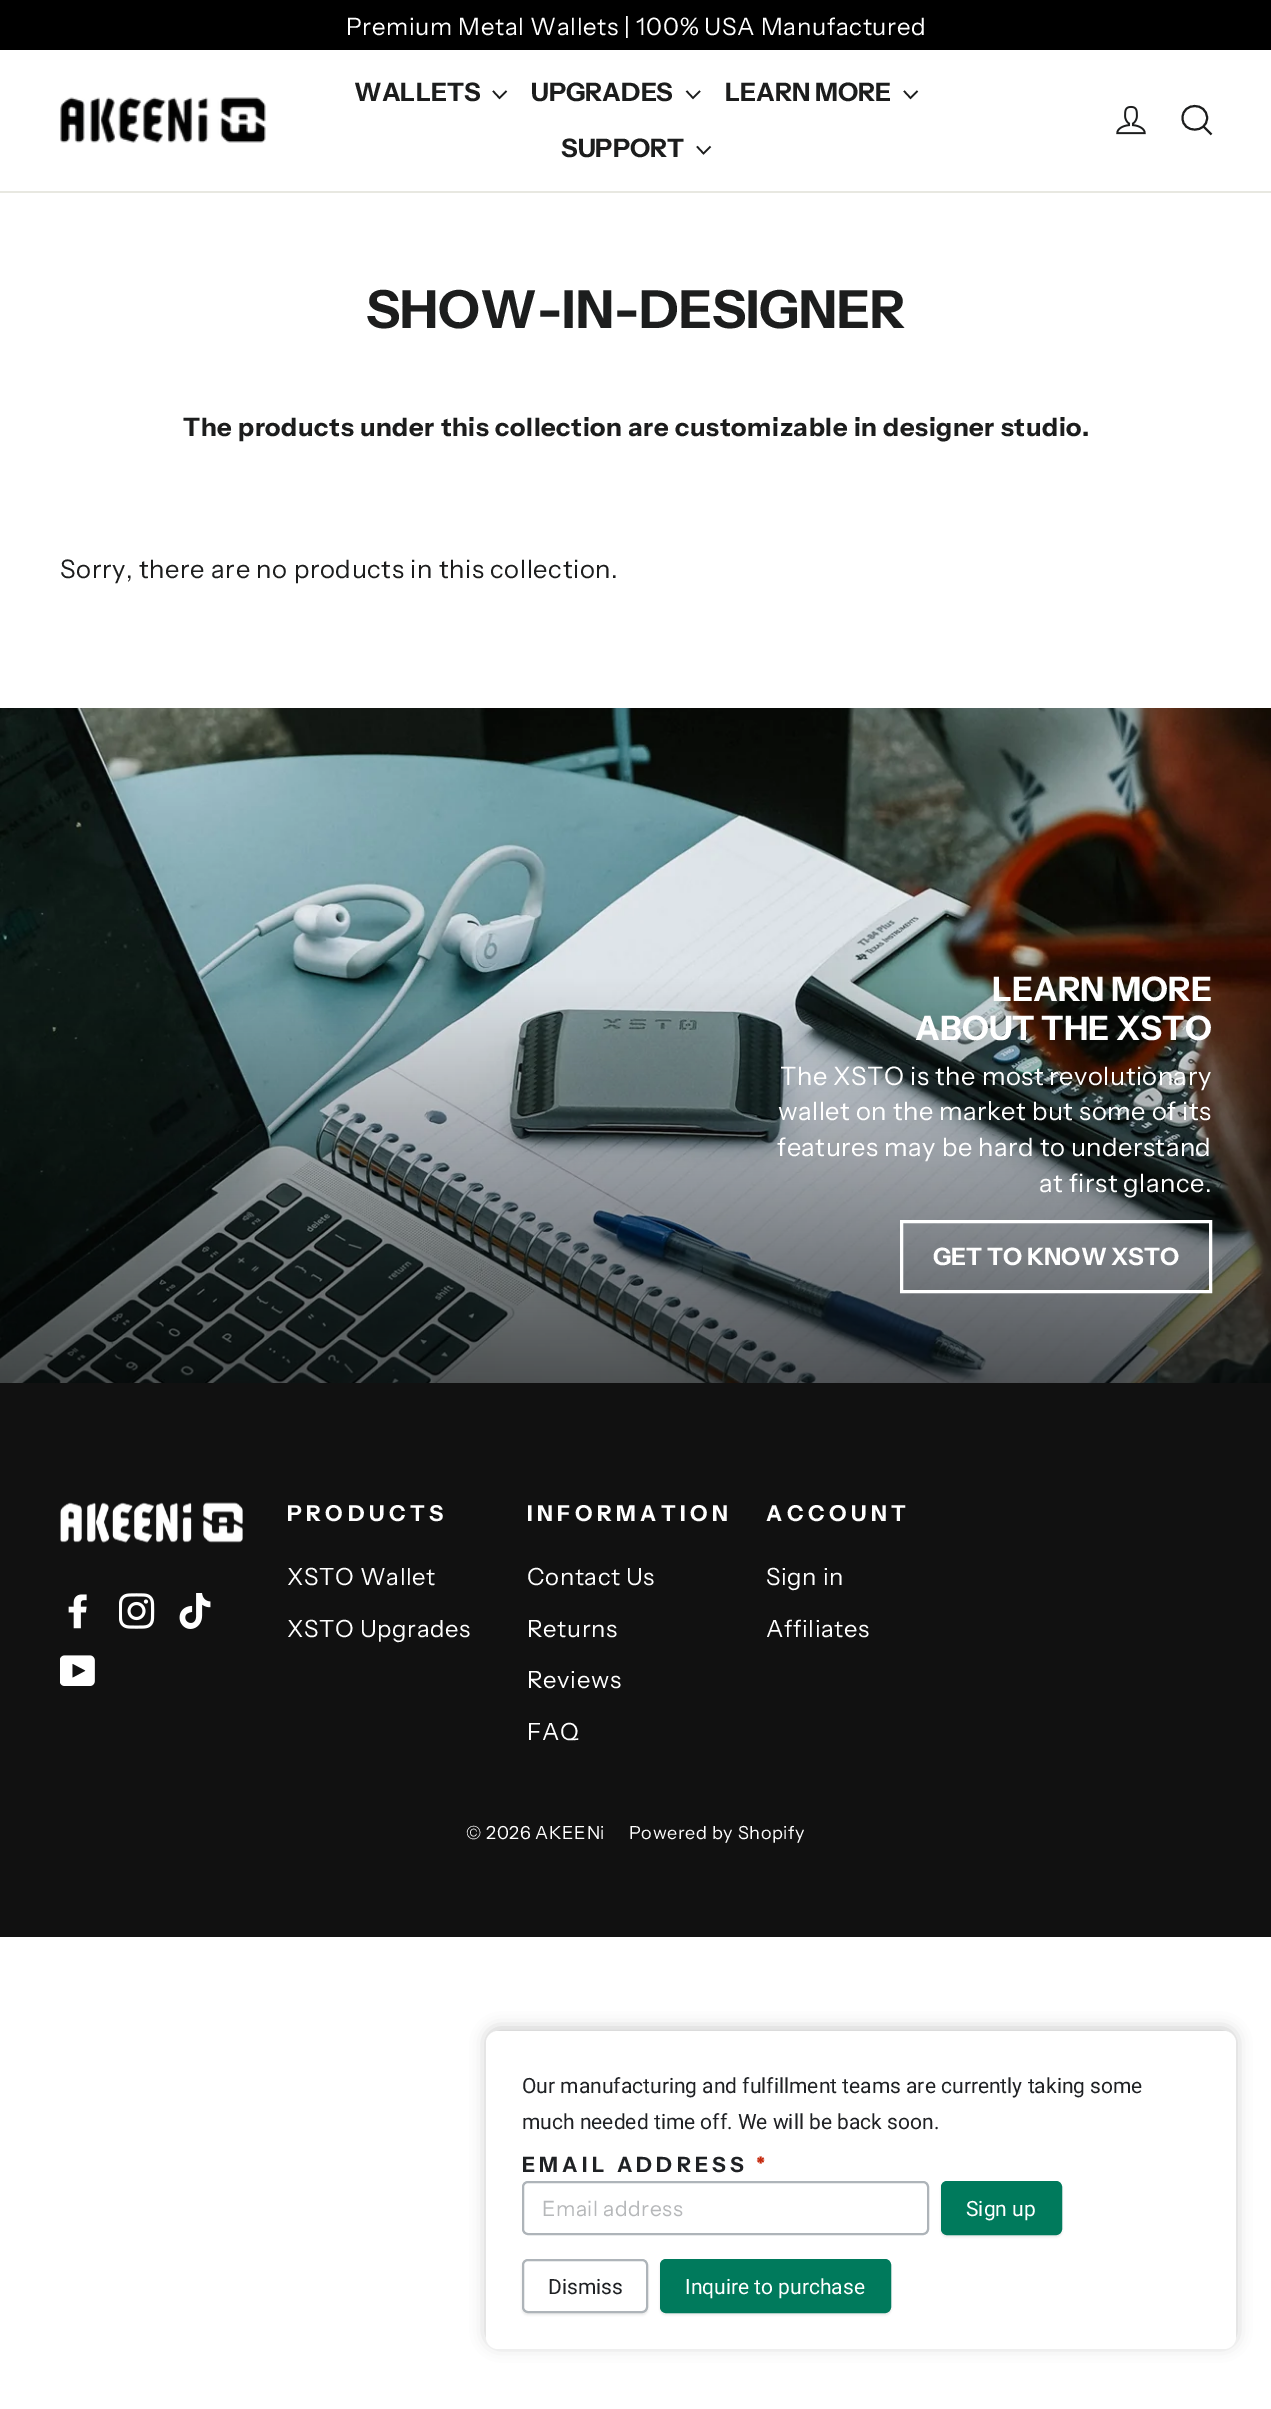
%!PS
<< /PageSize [1271 2409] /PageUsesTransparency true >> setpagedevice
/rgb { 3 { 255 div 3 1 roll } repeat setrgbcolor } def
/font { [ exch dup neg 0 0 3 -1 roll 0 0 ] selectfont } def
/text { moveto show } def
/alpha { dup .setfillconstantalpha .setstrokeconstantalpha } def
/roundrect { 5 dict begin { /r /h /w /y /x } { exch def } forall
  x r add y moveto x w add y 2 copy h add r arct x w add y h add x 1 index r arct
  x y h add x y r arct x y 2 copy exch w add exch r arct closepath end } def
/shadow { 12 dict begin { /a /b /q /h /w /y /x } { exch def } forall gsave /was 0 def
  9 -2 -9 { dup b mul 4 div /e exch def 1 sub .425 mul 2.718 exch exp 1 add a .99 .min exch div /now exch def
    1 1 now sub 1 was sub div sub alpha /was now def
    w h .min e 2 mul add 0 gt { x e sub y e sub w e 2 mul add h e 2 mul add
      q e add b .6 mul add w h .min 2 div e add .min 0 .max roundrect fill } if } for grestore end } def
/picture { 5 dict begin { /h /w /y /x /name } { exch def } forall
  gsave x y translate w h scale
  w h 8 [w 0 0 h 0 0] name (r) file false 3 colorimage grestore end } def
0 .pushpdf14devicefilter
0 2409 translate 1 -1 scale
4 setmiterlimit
255 255 255 rgb
0 0 1271 2409 rectfill
0 0 0 rgb
0 0 1271 50 rectfill
232 232 225 rgb
0 191 1271 2 rectfill
(img_01.rgb) 60 97 206 46 picture
28 29 29 rgb
1.6 setlinewidth
493 91 moveto 6.5 7 rlineto 7 -7 rlineto stroke
686.5 91 moveto 6.5 7 rlineto 7 -7 rlineto stroke
904 91 moveto 6.5 7 rlineto 7 -7 rlineto stroke
697 146.5 moveto 6.5 7 rlineto 7 -7 rlineto stroke
(img_02.rgb) 1116 105 30 30 picture
2 setlinewidth
1207 118 moveto 0 15.5 -24.5 15.5 -24.5 0 rcurveto 0 -16 24.5 -16 24.5 0 rcurveto closepath 1211.5 134.5 moveto -8 -8 rlineto stroke
(img_03.rgb) 0 708 1271 675 picture
255 255 255 rgb
3 setlinewidth
901.5 1221.5 309 70 rectstroke
17 17 17 rgb
0 1383 1271 554 rectfill
(img_04.rgb) 60 1502 183 41 picture
(img_05.rgb) 68 1594 19 35 picture
(img_06.rgb) 119 1593 36 36 picture
(img_07.rgb) 179 1593 32 36 picture
(img_08.rgb) 60 1655 35 31 picture
0 0 0 rgb
486 2028 750 318 12 7.5 0.2 shadow
255 255 255 rgb
486 2031 750 318 12 roundrect fill
174 180 185 rgb
2 setlinewidth
523 2182 405 52 5 roundrect stroke
31 33 36 rgb
941 2183 121 54 6 1 0.1 shadow
0 122 92 rgb
942 2182 119 52 5 roundrect gsave fill grestore
stroke
31 33 36 rgb
522 2261 126 54 6 1 0.1 shadow
255 255 255 rgb
523 2260 124 52 5 roundrect gsave fill grestore
174 180 185 rgb
stroke
31 33 36 rgb
660 2261 231 54 6 1 0.1 shadow
0 122 92 rgb
661 2260 229 52 5 roundrect gsave fill grestore
stroke
/InstrumentSans-Regular 24 font
255 255 255 rgb
346 35 moveto 0.65 0 (Premium Metal Wallets | 100% USA Manufactured) ashow
/InstrumentSans-Bold 25.5 font
28 29 29 rgb
(WALLETS) 354 101 text
(UPGRADES) 531 101 text
(LEARN MORE) 725 101 text
(SUPPORT) 561 157 text
/InstrumentSans-Bold 52.5 font
(SHOW-IN-DESIGNER) 366 328 text
/InstrumentSans-Bold 25.5 font
183 436 moveto 0.65 0 (The products under this collection are customizable in designer studio.) ashow
/InstrumentSans-Regular 25.5 font
60 578 moveto 0.65 0 (Sorry, there are no products in this collection.) ashow
/InstrumentSans-Bold 33.75 font
255 255 255 rgb
(LEARN MORE) 992 1001 text
(ABOUT THE XSTO) 915 1040 text
/InstrumentSans-Regular 25.5 font
780 1085 moveto 0.5 0 (The XSTO is the most revolutionary) ashow
778 1120 moveto 0.5 0 (wallet on the market but some of its) ashow
777 1156 moveto 0.5 0 (features may be hard to understand) ashow
1039 1192 moveto 0.5 0 (at first glance.) ashow
/InstrumentSans-Bold 24 font
(GET TO KNOW XSTO) 933 1265 text
/InstrumentSans-Bold 22 font
287 1521 moveto 4.5 0 (PRODUCTS) ashow
/InstrumentSans-Regular 23.75 font
287 1585 moveto 0.65 0 (XSTO Wallet) ashow
287 1637 moveto 0.65 0 (XSTO Upgrades) ashow
/InstrumentSans-Bold 22 font
527 1521 moveto 4.5 0 (INFORMATION) ashow
/InstrumentSans-Regular 23.75 font
527 1585 moveto 0.65 0 (Contact Us) ashow
527 1637 moveto 0.65 0 (Returns) ashow
527 1688 moveto 0.65 0 (Reviews) ashow
527 1740 moveto 0.65 0 (FAQ) ashow
/InstrumentSans-Bold 22 font
766 1521 moveto 4.5 0 (ACCOUNT) ashow
/InstrumentSans-Regular 23.75 font
766 1585 moveto 0.65 0 (Sign in) ashow
766 1637 moveto 0.65 0 (Affiliates) ashow
/InstrumentSans-Regular 18 font
466 1839 moveto 0.65 0 (© 2026 AKEENi) ashow
629 1839 moveto 0.65 0 (Powered by Shopify) ashow
/Roboto-Regular 21 font
31 33 36 rgb
(Our manufacturing and fulfillment teams are currently taking some) 522 2093 text
(much needed time off. We will be back soon.) 522 2129 text
/InstrumentSans-Bold 21 font
522 2172 moveto 4.25 0 (EMAIL ADDRESS) ashow
197 40 12 rgb
756 2172 moveto 4.25 0 (*) ashow
/InstrumentSans-Regular 21 font
182 184 186 rgb
542 2216 moveto 0.5 0 (Email address) ashow
/Roboto-Regular 21 font
255 255 255 rgb
(Sign up) 966 2216 text
31 33 36 rgb
(Dismiss) 548 2294 text
255 255 255 rgb
(Inquire to purchase) 685 2294 text
.poppdf14devicefilter showpage
